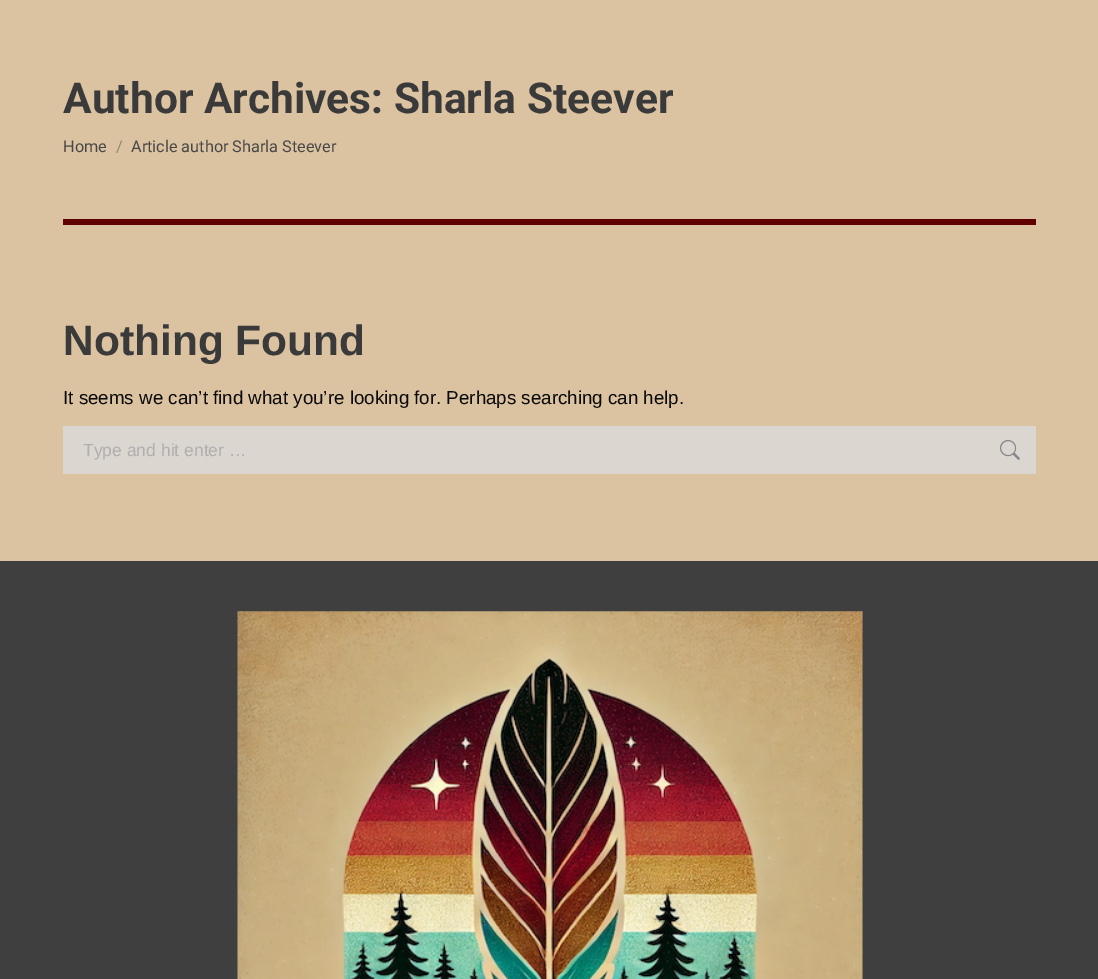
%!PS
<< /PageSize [1098 979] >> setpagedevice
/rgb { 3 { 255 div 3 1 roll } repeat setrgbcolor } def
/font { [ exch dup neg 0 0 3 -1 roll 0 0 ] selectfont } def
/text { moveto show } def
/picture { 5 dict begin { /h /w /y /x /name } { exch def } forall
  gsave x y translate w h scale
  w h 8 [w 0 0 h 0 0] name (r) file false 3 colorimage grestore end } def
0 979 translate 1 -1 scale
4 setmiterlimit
219 194 160 rgb
0 0 1098 979 rectfill
96 0 0 rgb
63 219 973 6 rectfill
219 215 208 rgb
63 426 973 48 rectfill
(img_01.rgb) 1000 440 20 20 picture
63 63 63 rgb
0 561 1098 418 rectfill
(img_02.rgb) 237 611 626 368 picture
/Roboto-Bold 42.5 font
58 58 58 rgb
(Author Archives: Sharla Steever) 63 113 text
/Roboto-Regular 16.25 font
71 71 71 rgb
(Home) 63 152 text
145 133 116 rgb
(/) 116 152 text
71 71 71 rgb
(Article author Sharla Steever) 131 152 text
/LiberationSans-Bold 42.5 font
58 58 58 rgb
(Nothing Found) 63 355 text
/LiberationSans-Regular 18.75 font
10 10 10 rgb
(It seems we can’t find what you’re looking for. Perhaps searching can help.) 63 404 text
/LiberationSans-Regular 17.5 font
176 175 174 rgb
(Type and hit enter …) 83 456 text
showpage
